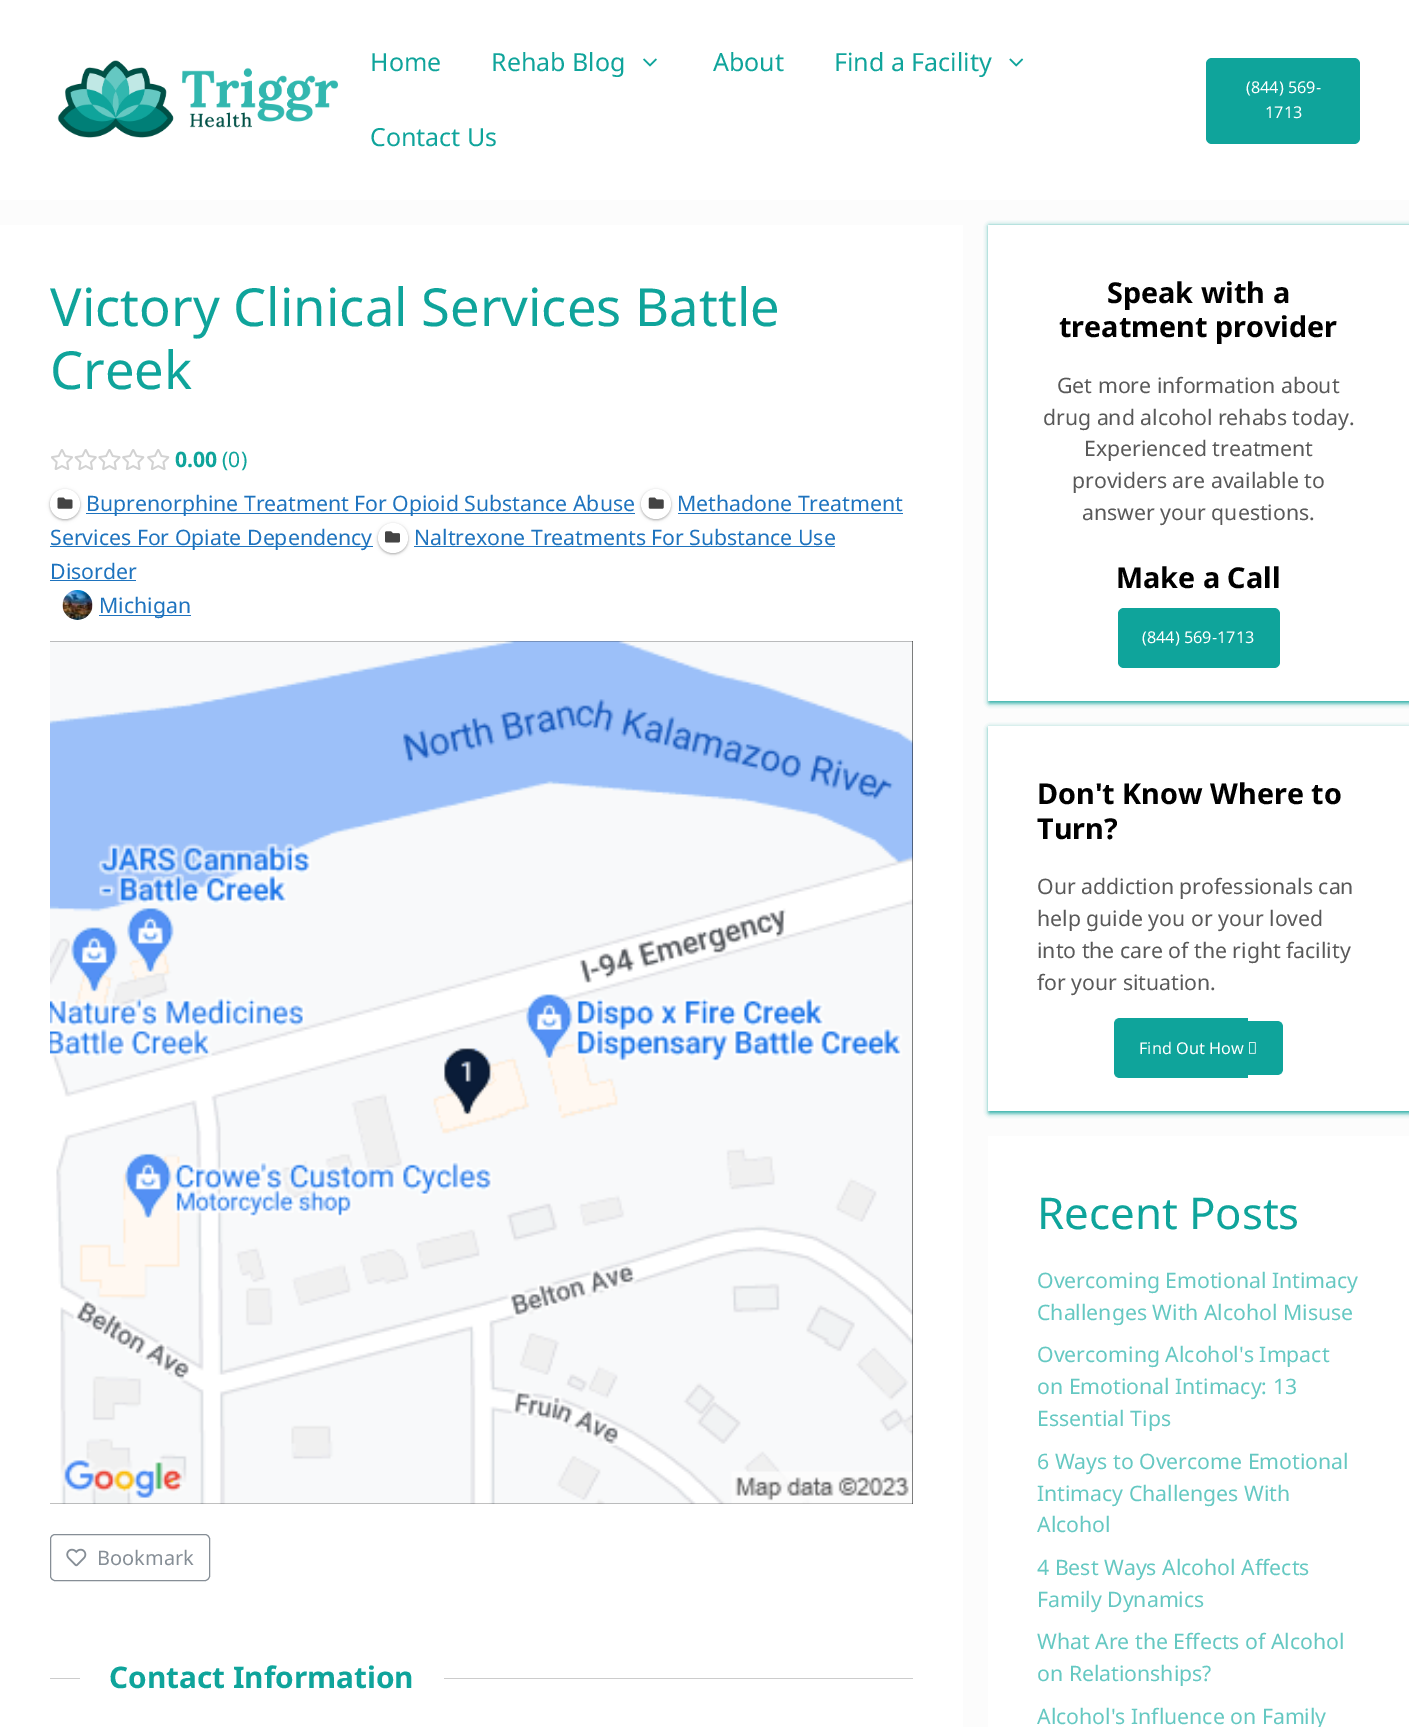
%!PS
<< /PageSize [1409 1727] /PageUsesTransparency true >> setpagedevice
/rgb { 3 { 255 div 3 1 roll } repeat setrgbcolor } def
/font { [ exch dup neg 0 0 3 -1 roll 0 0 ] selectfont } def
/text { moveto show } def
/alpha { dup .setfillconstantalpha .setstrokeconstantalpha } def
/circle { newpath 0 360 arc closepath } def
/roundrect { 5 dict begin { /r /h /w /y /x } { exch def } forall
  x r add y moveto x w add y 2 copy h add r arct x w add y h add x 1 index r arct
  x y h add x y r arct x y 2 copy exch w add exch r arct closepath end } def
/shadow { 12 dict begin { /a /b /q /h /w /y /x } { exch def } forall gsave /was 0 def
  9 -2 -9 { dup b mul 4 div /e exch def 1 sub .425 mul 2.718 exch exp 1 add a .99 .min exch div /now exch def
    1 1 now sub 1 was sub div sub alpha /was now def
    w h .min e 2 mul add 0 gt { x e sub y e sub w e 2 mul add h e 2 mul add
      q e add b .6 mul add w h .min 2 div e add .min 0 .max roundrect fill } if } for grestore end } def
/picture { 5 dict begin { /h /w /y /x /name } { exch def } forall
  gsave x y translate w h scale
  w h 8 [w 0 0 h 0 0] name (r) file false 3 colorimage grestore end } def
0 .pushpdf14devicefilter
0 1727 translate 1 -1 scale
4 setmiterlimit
252 252 252 rgb
0 0 1409 1727 rectfill
255 255 255 rgb
0 0 1409 200 rectfill
(img_01.rgb) 57 60 282 78 picture
(img_02.rgb) 643 58 14 9 picture
(img_03.rgb) 1009 58 15 9 picture
15 164 155 rgb
1206 58 154 86 6 roundrect fill
255 255 255 rgb
0 225 963 1502 rectfill
(img_04.rgb) 51 449 22 21 picture
(img_05.rgb) 74 449 23 21 picture
(img_06.rgb) 98 449 23 22 picture
(img_07.rgb) 122 449 23 21 picture
(img_07.rgb) 147 449 23 21 picture
0 0 0 rgb
641 490 30 30 15 1 0.24 shadow
30 115 190 rgb
86 513 549 1 rectfill
0 0 0 rgb
641 490 30 30 15 2 0.12 shadow
255 255 255 rgb
656 504 15 circle fill
(img_08.rgb) 648 497 16 12 picture
30 115 190 rgb
678 513 225 1 rectfill
50 546 323 1 rectfill
0 0 0 rgb
50 490 30 30 15 1 0.24 shadow
50 490 30 30 15 2 0.12 shadow
255 255 255 rgb
65 504 15 circle fill
(img_09.rgb) 57 497 16 12 picture
0 0 0 rgb
378 524 30 30 15 1 0.24 shadow
30 115 190 rgb
414 546 421 1 rectfill
0 0 0 rgb
378 524 30 30 15 2 0.12 shadow
255 255 255 rgb
393 538 15 circle fill
(img_10.rgb) 385 531 15 12 picture
30 115 190 rgb
50 580 86 1 rectfill
(img_11.rgb) 62 590 31 30 picture
99 615 92 1 rectfill
0 0 0 rgb
50 641 863 863 rectfill
(img_12.rgb) 50 641 863 863 picture
134 142 150 rgb
50.5 1534.5 159 46 4.5 roundrect stroke
(img_13.rgb) 66 1548 21 19 picture
204 204 204 rgb
50 1678 863 1 rectfill
255 255 255 rgb
80 1678 364 1 rectfill
15 164 155 rgb
989 226 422 477 0 2.5 1 shadow
255 255 255 rgb
988 225 421 476 rectfill
15 164 155 rgb
1118 608 162 60 6 roundrect fill
989 728 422 385 0 2.5 1 shadow
255 255 255 rgb
988 726 421 385 rectfill
15 164 155 rgb
1120 1018 moveto 128 0 rlineto 0 60 rlineto -128 0 rlineto -3.5 0 -6 -2.5 -6 -6 rcurveto 0 -48 rlineto 0 -3.5 2.5 -6 6 -6 rcurveto closepath fill
1248 1021 moveto 29 0 rlineto 3.5 0 6 2.5 6 6 rcurveto 0 42 rlineto 0 3.5 -2.5 6 -6 6 rcurveto -29 0 rlineto closepath fill
(img_14.rgb) 1249 1042 7 12 picture
255 255 255 rgb
988 1136 421 591 rectfill
/NotoSans-Regular 25 font
15 164 155 rgb
(Home) 370 71 text
(Rehab Blog) 491 71 text
(About) 713 71 text
(Find a Facility) 834 71 text
(Contact Us) 370 146 text
/NotoSans-Regular 16.25 font
255 255 255 rgb
(\(844\) 569-) 1246 93 text
(1713) 1265 118 text
/NotoSans-Regular 52.5 font
15 164 155 rgb
(Victory Clinical Services Battle) 50 326 text
(Creek) 50 389 text
/NotoSans-Bold 21.25 font
(0.00) 175 467 text
/NotoSans-Regular 21.25 font
(\(0\)) 222 467 text
30 115 190 rgb
(Methadone Treatment) 677 511 text
(Services For Opiate Dependency) 50 545 text
(Buprenorphine Treatment For Opioid Substance Abuse) 86 511 text
(Naltrexone Treatments For Substance Use) 414 545 text
(Disorder) 50 579 text
(Michigan) 99 613 text
/NotoSans-Regular 20 font
134 142 150 rgb
(Bookmark) 97 1565 text
/NotoSans-Bold 29.75 font
15 164 155 rgb
(Contact Information) 109 1688 text
/NotoSans-Bold 28.75 font
0 0 0 rgb
(Speak with a) 1107 303 text
(treatment provider) 1059 337 text
/NotoSans-Regular 21.25 font
89 89 89 rgb
(Get more information about) 1057 393 text
(drug and alcohol rehabs today.) 1043 425 text
(Experienced treatment) 1084 456 text
(providers are available to) 1072 488 text
(answer your questions.) 1082 520 text
/NotoSans-Bold 28.75 font
0 0 0 rgb
(Make a Call) 1116 588 text
/NotoSans-Regular 16.25 font
255 255 255 rgb
(\(844\) 569-1713) 1142 643 text
/NotoSans-Bold 28.75 font
0 0 0 rgb
(Don't Know Where to) 1037 804 text
(Turn?) 1037 839 text
/NotoSans-Regular 21.25 font
89 89 89 rgb
(Our addiction professionals can) 1037 894 text
(help guide you or your loved) 1037 926 text
(into the care of the right facility) 1037 958 text
(for your situation.) 1037 990 text
/NotoSans-Regular 16.25 font
255 255 255 rgb
(Find Out How) 1139 1054 text
/NotoSans-Regular 43.75 font
15 164 155 rgb
(Recent Posts) 1037 1229 text
/NotoSans-Regular 21.25 font
101 200 194 rgb
(Overcoming Emotional Intimacy) 1037 1288 text
(Challenges With Alcohol Misuse) 1037 1320 text
(Overcoming Alcohol's Impact) 1037 1362 text
(on Emotional Intimacy: 13) 1037 1394 text
(Essential Tips) 1037 1426 text
(6 Ways to Overcome Emotional) 1037 1469 text
(Intimacy Challenges With) 1037 1501 text
(Alcohol) 1037 1532 text
(4 Best Ways Alcohol Affects) 1037 1575 text
(Family Dynamics) 1037 1607 text
(What Are the Effects of Alcohol) 1037 1649 text
(on Relationships?) 1037 1681 text
(Alcohol's Influence on Family) 1037 1724 text
.poppdf14devicefilter showpage
